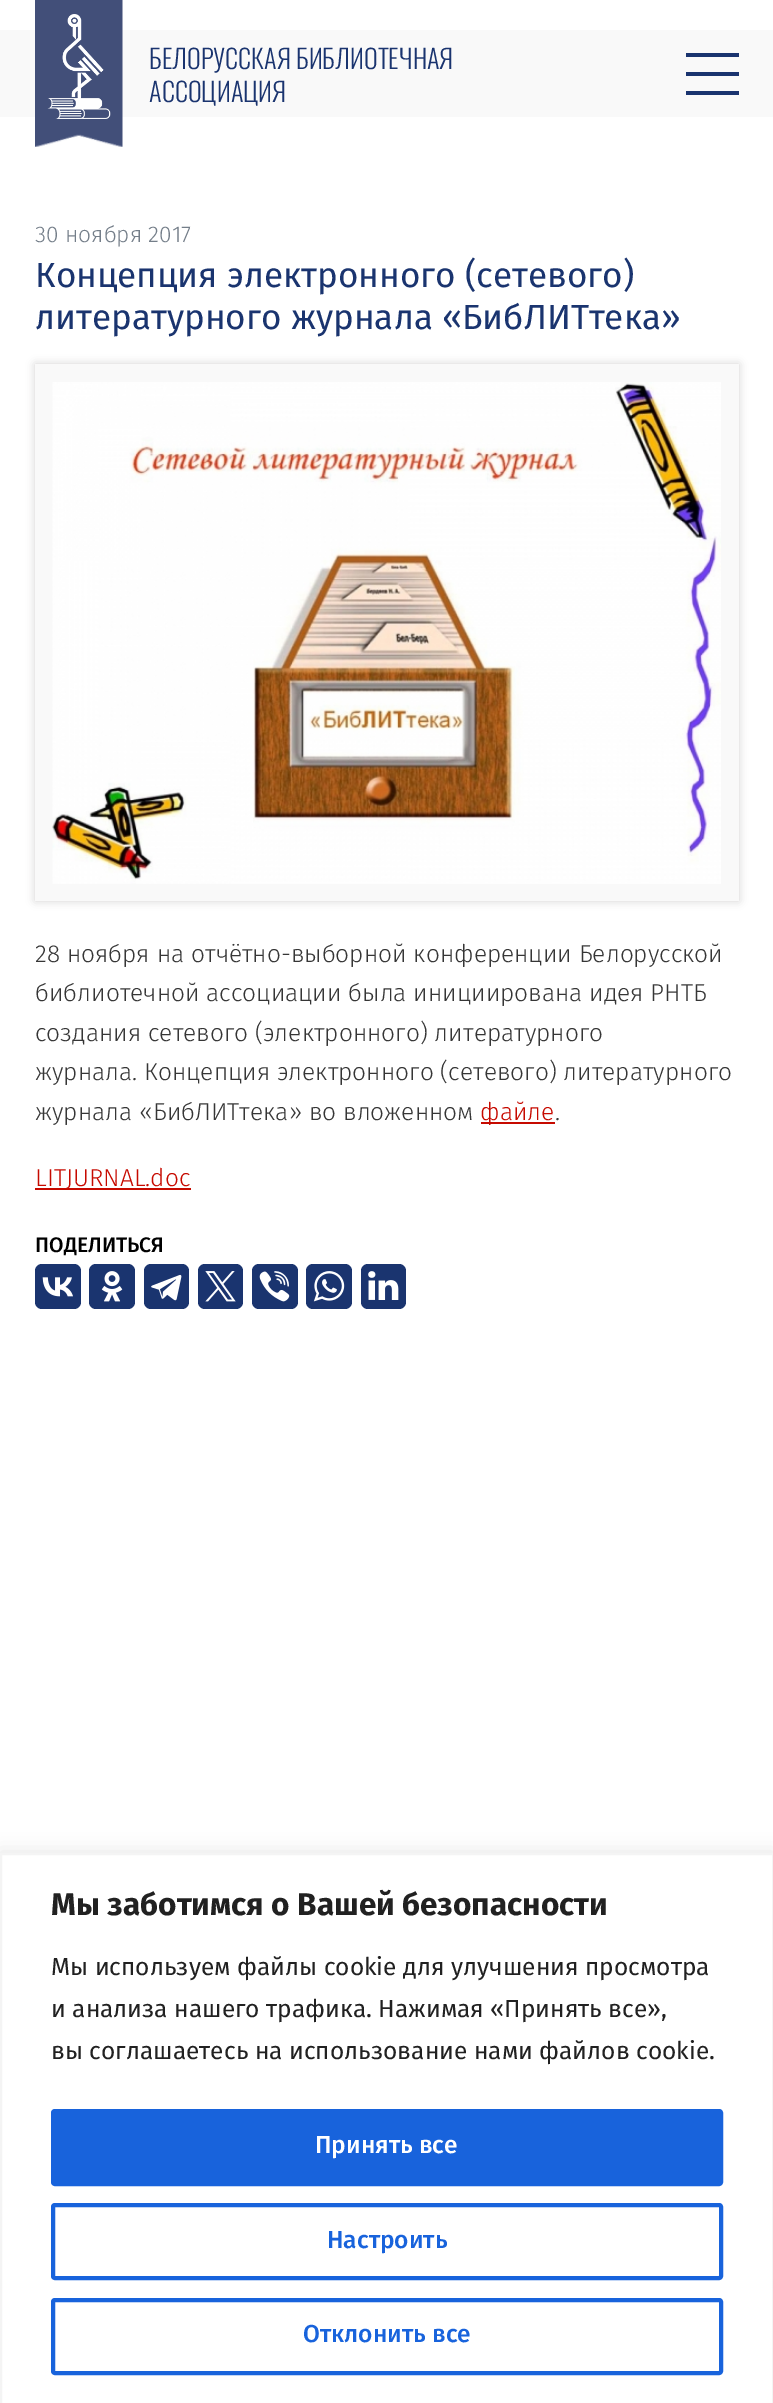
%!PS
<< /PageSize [773 2403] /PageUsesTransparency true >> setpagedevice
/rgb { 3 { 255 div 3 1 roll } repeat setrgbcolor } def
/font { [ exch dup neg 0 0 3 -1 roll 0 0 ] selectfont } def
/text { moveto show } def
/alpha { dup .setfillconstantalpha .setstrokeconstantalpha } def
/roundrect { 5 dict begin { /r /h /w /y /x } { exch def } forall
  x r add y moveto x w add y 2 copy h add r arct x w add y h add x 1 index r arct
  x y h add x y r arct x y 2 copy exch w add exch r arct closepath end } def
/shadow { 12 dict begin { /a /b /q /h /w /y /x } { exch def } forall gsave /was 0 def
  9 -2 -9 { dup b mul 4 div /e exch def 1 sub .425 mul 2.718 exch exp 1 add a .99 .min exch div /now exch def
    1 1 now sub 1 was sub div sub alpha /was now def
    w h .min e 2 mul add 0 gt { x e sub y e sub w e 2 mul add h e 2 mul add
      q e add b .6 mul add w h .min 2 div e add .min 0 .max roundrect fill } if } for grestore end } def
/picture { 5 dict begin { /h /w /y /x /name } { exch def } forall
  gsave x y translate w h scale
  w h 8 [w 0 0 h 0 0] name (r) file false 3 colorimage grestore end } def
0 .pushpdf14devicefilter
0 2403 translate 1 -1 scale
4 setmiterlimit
255 255 255 rgb
0 0 773 2403 rectfill
249 249 249 rgb
0 30 773 87 rectfill
(img_01.rgb) 35 0 88 147 picture
(img_02.rgb) 47 14 64 105 picture
26 52 111 rgb
686 53 53 4 rectfill
686 72 53 4 rectfill
686 91 53 4 rectfill
199 197 197 rgb
35 364 704 537 0 4.5 0.75 shadow
249 249 249 rgb
35 364 704 537 rectfill
(img_03.rgb) 52 382 669 502 picture
198 10 0 rgb
481 1122 74 2 rectfill
35 1188 156 2 rectfill
26 52 111 rgb
35 1264 46 45 7 roundrect fill
(img_04.rgb) 42 1277 31 20 picture
89 1264 46 45 7 roundrect fill
(img_05.rgb) 101 1271 22 31 picture
144 1264 45 45 7 roundrect fill
(img_06.rgb) 151 1274 31 27 picture
198 1264 45 45 7 roundrect fill
(img_07.rgb) 205 1271 31 31 picture
252 1264 46 45 7 roundrect fill
(img_08.rgb) 259 1271 31 31 picture
306 1264 46 45 7 roundrect fill
(img_09.rgb) 313 1271 32 31 picture
361 1264 45 45 7 roundrect fill
(img_10.rgb) 368 1271 31 29 picture
172 171 171 rgb
0 1852 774 551 0 9 0.3 shadow
255 255 255 rgb
1 1854 moveto 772 0 rlineto 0 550 rlineto -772 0 rlineto closepath gsave fill grestore
244 244 244 rgb
2 setlinewidth
stroke
24 99 220 rgb
53 2111 668 73 2 roundrect gsave fill grestore
4 setlinewidth
stroke
53 2205 668 73 2 roundrect stroke
53 2300 668 73 2 roundrect stroke
/Oswald-Light 26.25 font
26 52 111 rgb
(БЕЛОРУССКАЯ БИБЛИОТЕЧНАЯ) 149 69 text
(АССОЦИАЦИЯ) 149 102 text
/FiraSans-Light 22.75 font
116 126 137 rgb
(30 ноября 2017) 35 242 text
/FiraSans-Regular 35 font
26 52 111 rgb
(Концепция электронного \(сетевого\)) 35 287 text
(литературного журнала «БибЛИТтека») 35 329 text
/FiraSans-Light 24.5 font
54 54 54 rgb
(28 ноября на отчётно-выборной конференции Белорусской) 35 962 text
(библиотечной ассоциации была инициирована идея РНТБ) 35 1001 text
(создания сетевого \(электронного\) литературного) 35 1041 text
(журнала. Концепция электронного \(сетевого\) литературного) 35 1080 text
(журнала «БибЛИТтека» во вложенном) 35 1120 text
198 10 0 rgb
(файле) 480 1120 text
54 54 54 rgb
(.) 555 1120 text
198 10 0 rgb
(LITJURNAL.doc) 35 1186 text
/FiraSans-Medium 21 font
0 0 0 rgb
(ПОДЕЛИТЬСЯ) 35 1252 text
/FiraSans-Bold 31.5 font
33 33 33 rgb
(Мы заботимся о Вашей безопасности) 51 1915 text
/FiraSans-Regular 24.5 font
(Мы используем файлы cookie для улучшения просмотра) 51 1975 text
(и анализа нашего трафика. Нажимая «Принять все»,) 51 2017 text
(вы соглашаетесь на использование нами файлов cookie.) 51 2059 text
/FiraSans-Medium 24.5 font
255 255 255 rgb
(Принять все) 315 2153 text
24 99 220 rgb
(Настроить) 327 2248 text
(Отклонить все) 303 2342 text
.poppdf14devicefilter showpage
